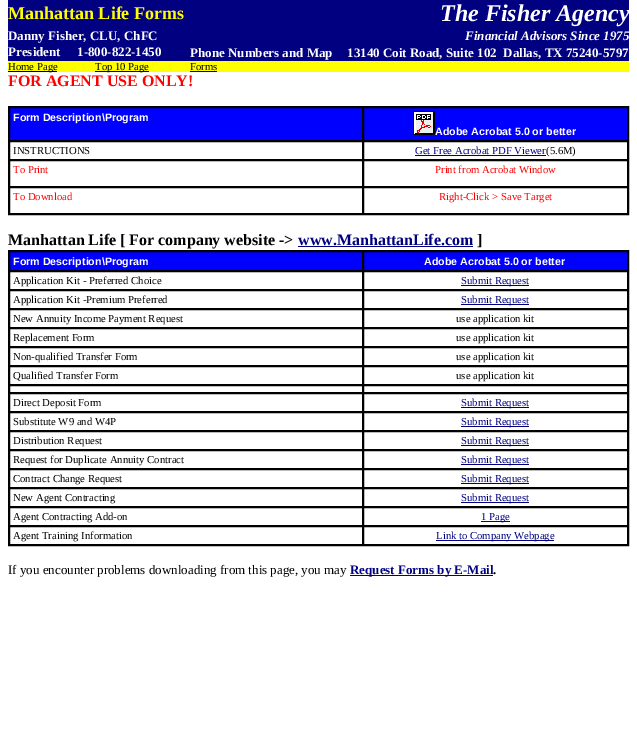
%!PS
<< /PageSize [637 753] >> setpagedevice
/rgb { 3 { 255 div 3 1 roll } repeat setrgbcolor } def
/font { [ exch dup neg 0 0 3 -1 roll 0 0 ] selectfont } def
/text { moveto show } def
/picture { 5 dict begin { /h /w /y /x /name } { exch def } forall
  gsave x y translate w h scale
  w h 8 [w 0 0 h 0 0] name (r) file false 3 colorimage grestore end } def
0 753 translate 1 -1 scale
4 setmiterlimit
255 255 255 rgb
0 0 637 753 rectfill
0 0 128 rgb
8 0 621 61 rectfill
255 255 0 rgb
8 61 621 11 rectfill
0 0 0 rgb
8 71 49 1 rectfill
0 0 128 rgb
95 71 54 1 rectfill
190 71 27 1 rectfill
0 0 0 rgb
8.5 106.5 620 108 rectstroke
0 0 255 rgb
9.5 107.5 moveto 353 0 rlineto 0 33 rlineto -353 0 rlineto closepath gsave fill grestore
0 0 0 rgb
stroke
0 0 255 rgb
363.5 107.5 moveto 264 0 rlineto 0 33 rlineto -264 0 rlineto closepath gsave fill grestore
0 0 0 rgb
stroke
(img_01.rgb) 413 111 22 24 picture
9.5 141.5 353 18 rectstroke
363.5 141.5 264 18 rectstroke
0 0 128 rgb
415 155 131 1 rectfill
0 0 0 rgb
9.5 160.5 353 26 rectstroke
363.5 160.5 264 26 rectstroke
9.5 187.5 353 26 rectstroke
363.5 187.5 264 26 rectstroke
0 0 128 rgb
298 246 175 1 rectfill
0 0 0 rgb
8.5 250.5 620 295 rectstroke
0 0 255 rgb
9.5 251.5 moveto 353 0 rlineto 0 19 rlineto -353 0 rlineto closepath gsave fill grestore
0 0 0 rgb
stroke
0 0 255 rgb
363.5 251.5 moveto 264 0 rlineto 0 19 rlineto -264 0 rlineto closepath gsave fill grestore
0 0 0 rgb
stroke
9.5 271.5 353 18 rectstroke
363.5 271.5 264 18 rectstroke
0 0 128 rgb
461 285 68 1 rectfill
0 0 0 rgb
9.5 290.5 353 18 rectstroke
363.5 290.5 264 18 rectstroke
0 0 128 rgb
461 304 68 1 rectfill
0 0 0 rgb
9.5 309.5 353 18 rectstroke
363.5 309.5 264 18 rectstroke
9.5 328.5 353 18 rectstroke
363.5 328.5 264 18 rectstroke
9.5 347.5 353 18 rectstroke
363.5 347.5 264 18 rectstroke
9.5 366.5 353 18 rectstroke
363.5 366.5 264 18 rectstroke
9.5 385.5 353 7 rectstroke
363.5 385.5 264 7 rectstroke
9.5 393.5 353 18 rectstroke
363.5 393.5 264 18 rectstroke
0 0 128 rgb
461 407 68 1 rectfill
0 0 0 rgb
9.5 412.5 353 18 rectstroke
363.5 412.5 264 18 rectstroke
0 0 128 rgb
461 426 68 1 rectfill
0 0 0 rgb
9.5 431.5 353 18 rectstroke
363.5 431.5 264 18 rectstroke
0 0 128 rgb
461 445 68 1 rectfill
0 0 0 rgb
9.5 450.5 353 18 rectstroke
363.5 450.5 264 18 rectstroke
0 0 128 rgb
461 464 68 1 rectfill
0 0 0 rgb
9.5 469.5 353 18 rectstroke
363.5 469.5 264 18 rectstroke
0 0 128 rgb
461 483 68 1 rectfill
0 0 0 rgb
9.5 488.5 353 18 rectstroke
363.5 488.5 264 18 rectstroke
0 0 128 rgb
461 502 68 1 rectfill
0 0 0 rgb
9.5 507.5 353 18 rectstroke
363.5 507.5 264 18 rectstroke
0 0 128 rgb
481 521 29 1 rectfill
0 0 0 rgb
9.5 526.5 353 18 rectstroke
363.5 526.5 264 18 rectstroke
0 0 128 rgb
436 540 118 1 rectfill
350 575 143 1 rectfill
/LiberationSerif-Bold 18 font
255 255 0 rgb
(Manhattan Life Forms) 8 19 text
/LiberationSerif-BoldItalic 24 font
255 255 255 rgb
(The Fisher Agency) 440 21 text
/LiberationSerif-Bold 13 font
(Danny Fisher, CLU, ChFC) 8 40 text
(President) 8 56 text
(1-800-822-1450) 77 56 text
/LiberationSerif-BoldItalic 13 font
(Financial Advisors Since 1975) 465 40 text
/LiberationSerif-Bold 13 font
(Phone Numbers and Map) 190 57 text
(13140 Coit Road, Suite 102  Dallas, TX 75240-5797) 347 57 text
/LiberationSerif-Regular 10.7 font
0 0 0 rgb
(Home Page) 8 70 text
(Top 10 Page) 95 70 text
(Forms) 190 70 text
/LiberationSerif-Bold 16 font
255 0 0 rgb
(FOR AGENT USE ONLY!) 8 86 text
/LiberationSans-Bold 10.7 font
255 255 255 rgb
(Form Description\\Program) 13 121 text
(Adobe Acrobat 5.0 or better) 435 135 text
/LiberationSerif-Regular 10.7 font
0 0 0 rgb
(INSTRUCTIONS) 13 154 text
0 0 128 rgb
(Get Free Acrobat PDF Viewer) 415 154 text
0 0 0 rgb
(\(5.6M\)) 546 154 text
255 0 0 rgb
(To Print) 13 173 text
(Print from Acrobat Window) 435 173 text
(To Download) 13 200 text
(Right-Click > Save Target) 439 200 text
/LiberationSerif-Bold 16 font
0 0 0 rgb
(Manhattan Life [ For company website ->) 8 245 text
0 0 128 rgb
(www.ManhattanLife.com) 298 245 text
0 0 0 rgb
(]) 477 245 text
/LiberationSans-Bold 10.7 font
255 255 255 rgb
(Form Description\\Program) 13 265 text
(Adobe Acrobat 5.0 or better) 424 265 text
/LiberationSerif-Regular 10.7 font
0 0 0 rgb
(Application Kit - Preferred Choice) 13 284 text
0 0 128 rgb
(Submit Request) 461 284 text
0 0 0 rgb
(Application Kit -Premium Preferred) 13 303 text
0 0 128 rgb
(Submit Request) 461 303 text
0 0 0 rgb
(New Annuity Income Payment Request) 13 322 text
(use application kit) 456 322 text
(Replacement Form) 13 341 text
(use application kit) 456 341 text
(Non-qualified Transfer Form) 13 360 text
(use application kit) 456 360 text
(Qualified Transfer Form) 13 379 text
(use application kit) 456 379 text
(Direct Deposit Form) 13 406 text
0 0 128 rgb
(Submit Request) 461 406 text
0 0 0 rgb
(Substitute W9 and W4P) 13 425 text
0 0 128 rgb
(Submit Request) 461 425 text
0 0 0 rgb
(Distribution Request) 13 444 text
0 0 128 rgb
(Submit Request) 461 444 text
0 0 0 rgb
(Request for Duplicate Annuity Contract) 13 463 text
0 0 128 rgb
(Submit Request) 461 463 text
0 0 0 rgb
(Contract Change Request) 13 482 text
0 0 128 rgb
(Submit Request) 461 482 text
0 0 0 rgb
(New Agent Contracting) 13 501 text
0 0 128 rgb
(Submit Request) 461 501 text
0 0 0 rgb
(Agent Contracting Add-on) 13 520 text
0 0 128 rgb
(1 Page) 481 520 text
0 0 0 rgb
(Agent Training Information) 13 539 text
0 0 128 rgb
(Link to Company Webpage) 436 539 text
/LiberationSerif-Regular 13 font
0 0 0 rgb
(If you encounter problems downloading from this page, you may) 8 574 text
/LiberationSerif-Bold 13 font
0 0 128 rgb
(Request Forms by E-Mail) 350 574 text
0 0 0 rgb
(.) 493 574 text
showpage
